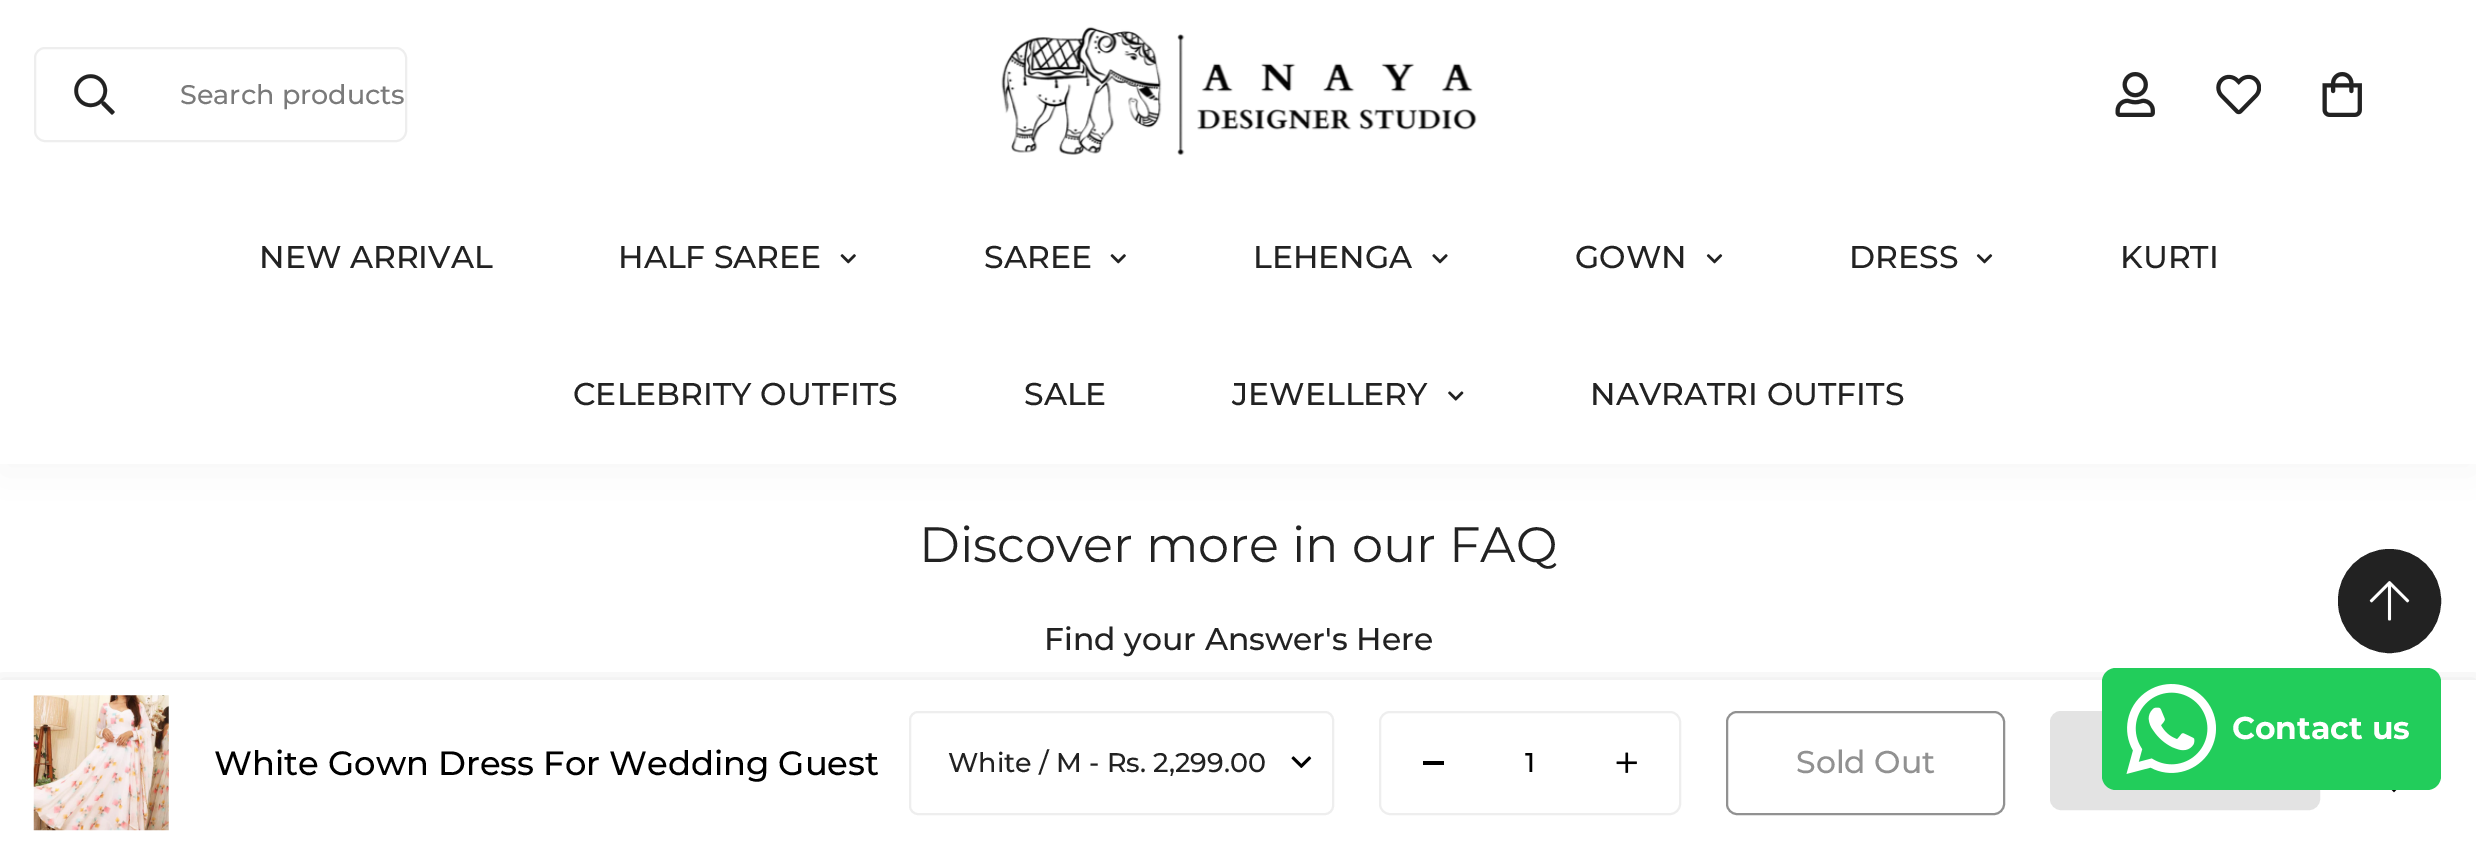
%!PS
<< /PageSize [2476 844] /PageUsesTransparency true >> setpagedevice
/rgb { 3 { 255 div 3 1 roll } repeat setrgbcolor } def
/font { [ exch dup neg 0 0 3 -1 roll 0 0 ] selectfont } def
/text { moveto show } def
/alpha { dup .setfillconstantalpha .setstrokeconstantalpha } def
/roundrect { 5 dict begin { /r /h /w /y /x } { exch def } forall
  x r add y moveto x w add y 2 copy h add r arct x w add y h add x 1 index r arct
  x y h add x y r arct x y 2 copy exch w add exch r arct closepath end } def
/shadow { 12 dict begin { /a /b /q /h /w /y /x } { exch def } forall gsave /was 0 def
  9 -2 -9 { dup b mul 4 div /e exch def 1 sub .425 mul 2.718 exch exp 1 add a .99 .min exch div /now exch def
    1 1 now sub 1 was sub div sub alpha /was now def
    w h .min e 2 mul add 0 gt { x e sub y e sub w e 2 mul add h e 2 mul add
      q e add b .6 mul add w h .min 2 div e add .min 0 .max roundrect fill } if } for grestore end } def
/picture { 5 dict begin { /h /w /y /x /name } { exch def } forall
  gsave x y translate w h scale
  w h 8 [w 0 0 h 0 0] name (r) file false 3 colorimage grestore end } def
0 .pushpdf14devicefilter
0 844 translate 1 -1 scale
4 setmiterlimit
255 255 255 rgb
0 0 2476 844 rectfill
0 0 0 rgb
0 9 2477 464 0 22.5 0.04 shadow
255 255 255 rgb
0 0 2476 464 rectfill
238 238 238 rgb
2 setlinewidth
35 48 371 93 10 roundrect stroke
(img_01.rgb) 74 74 41 41 picture
(img_02.rgb) 1001 26 476 130 picture
(img_03.rgb) 2115 72 40 45 picture
(img_04.rgb) 2216 74 45 41 picture
(img_05.rgb) 2322 72 40 45 picture
(img_06.rgb) 840 254 16 10 picture
(img_06.rgb) 1110 254 16 10 picture
(img_07.rgb) 1432 254 16 10 picture
(img_08.rgb) 1706 254 17 10 picture
(img_08.rgb) 1976 254 17 10 picture
(img_09.rgb) 1448 391 16 10 picture
gsave
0 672 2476 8 rectclip
0 0 0 rgb
0 680 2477 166 0 11 0.09 shadow
grestore
(img_10.rgb) 33 695 136 136 picture
(img_11.rgb) 1291 756 21 12 picture
910 712 423 102 8 roundrect stroke
1380 712 300 102 10 roundrect stroke
0 0 0 rgb
1423 761 21 4 rectfill
(img_12.rgb) 1616 752 21 21 picture
145 145 145 rgb
1727 712 277 102 10 roundrect stroke
227 227 227 rgb
2051 712 268 97 10 roundrect gsave fill grestore
stroke
0 0 0 rgb
5.3 setlinewidth
2370 764.5 moveto 24 24 rlineto 16 -16 rlineto 3.5 -3.5 8 -7 10.5 -11.5 rcurveto 6.5 -12.5 -7.5 -27.5 -20 -19.5 rcurveto -3 1.5 -4.5 4 -6.5 6.5 rcurveto -2 -2.5 -3.5 -5 -6.5 -6.5 rcurveto -15 -9.5 -29 11.5 -17.5 23 rcurveto closepath stroke
34 34 34 rgb
2339 550 101 102 50.5 roundrect gsave fill grestore
2 setlinewidth
stroke
(img_13.rgb) 2369 581 41 40 picture
34 205 91 rgb
2102 668 339 122 14 roundrect fill
(img_14.rgb) 2126 684 90 90 picture
/Montserrat-Medium 27 font
122 122 122 rgb
(Search products) 180 104 text
/Montserrat-Medium 31.5 font
34 34 34 rgb
(NEW ARRIVAL) 259 268 text
(HALF SAREE) 618 268 text
(SAREE) 984 268 text
(LEHENGA) 1253 268 text
(GOWN) 1575 268 text
(DRESS) 1849 268 text
(KURTI) 2120 268 text
(CELEBRITY OUTFITS) 573 405 text
(SALE) 1024 405 text
(JEWELLERY) 1232 405 text
(NAVRATRI OUTFITS) 1590 405 text
/Montserrat-Regular 49.5 font
(Discover more in our FAQ) 919 562 text
/Montserrat-Medium 31.5 font
(Find your Answer's Here) 1044 650 text
/Montserrat-Medium 33.75 font
0 0 0 rgb
(White Gown Dress For Wedding Guest) 214 775 text
/Montserrat-Medium 27 font
34 34 34 rgb
(White / M - Rs. 2,299.00) 948 772 text
0 0 0 rgb
(1) 1525 772 text
/Montserrat-Medium 31.5 font
145 145 145 rgb
(Sold Out) 1796 773 text
/Montserrat-Bold 31.5 font
255 255 255 rgb
(Contact us) 2232 739 text
.poppdf14devicefilter showpage
